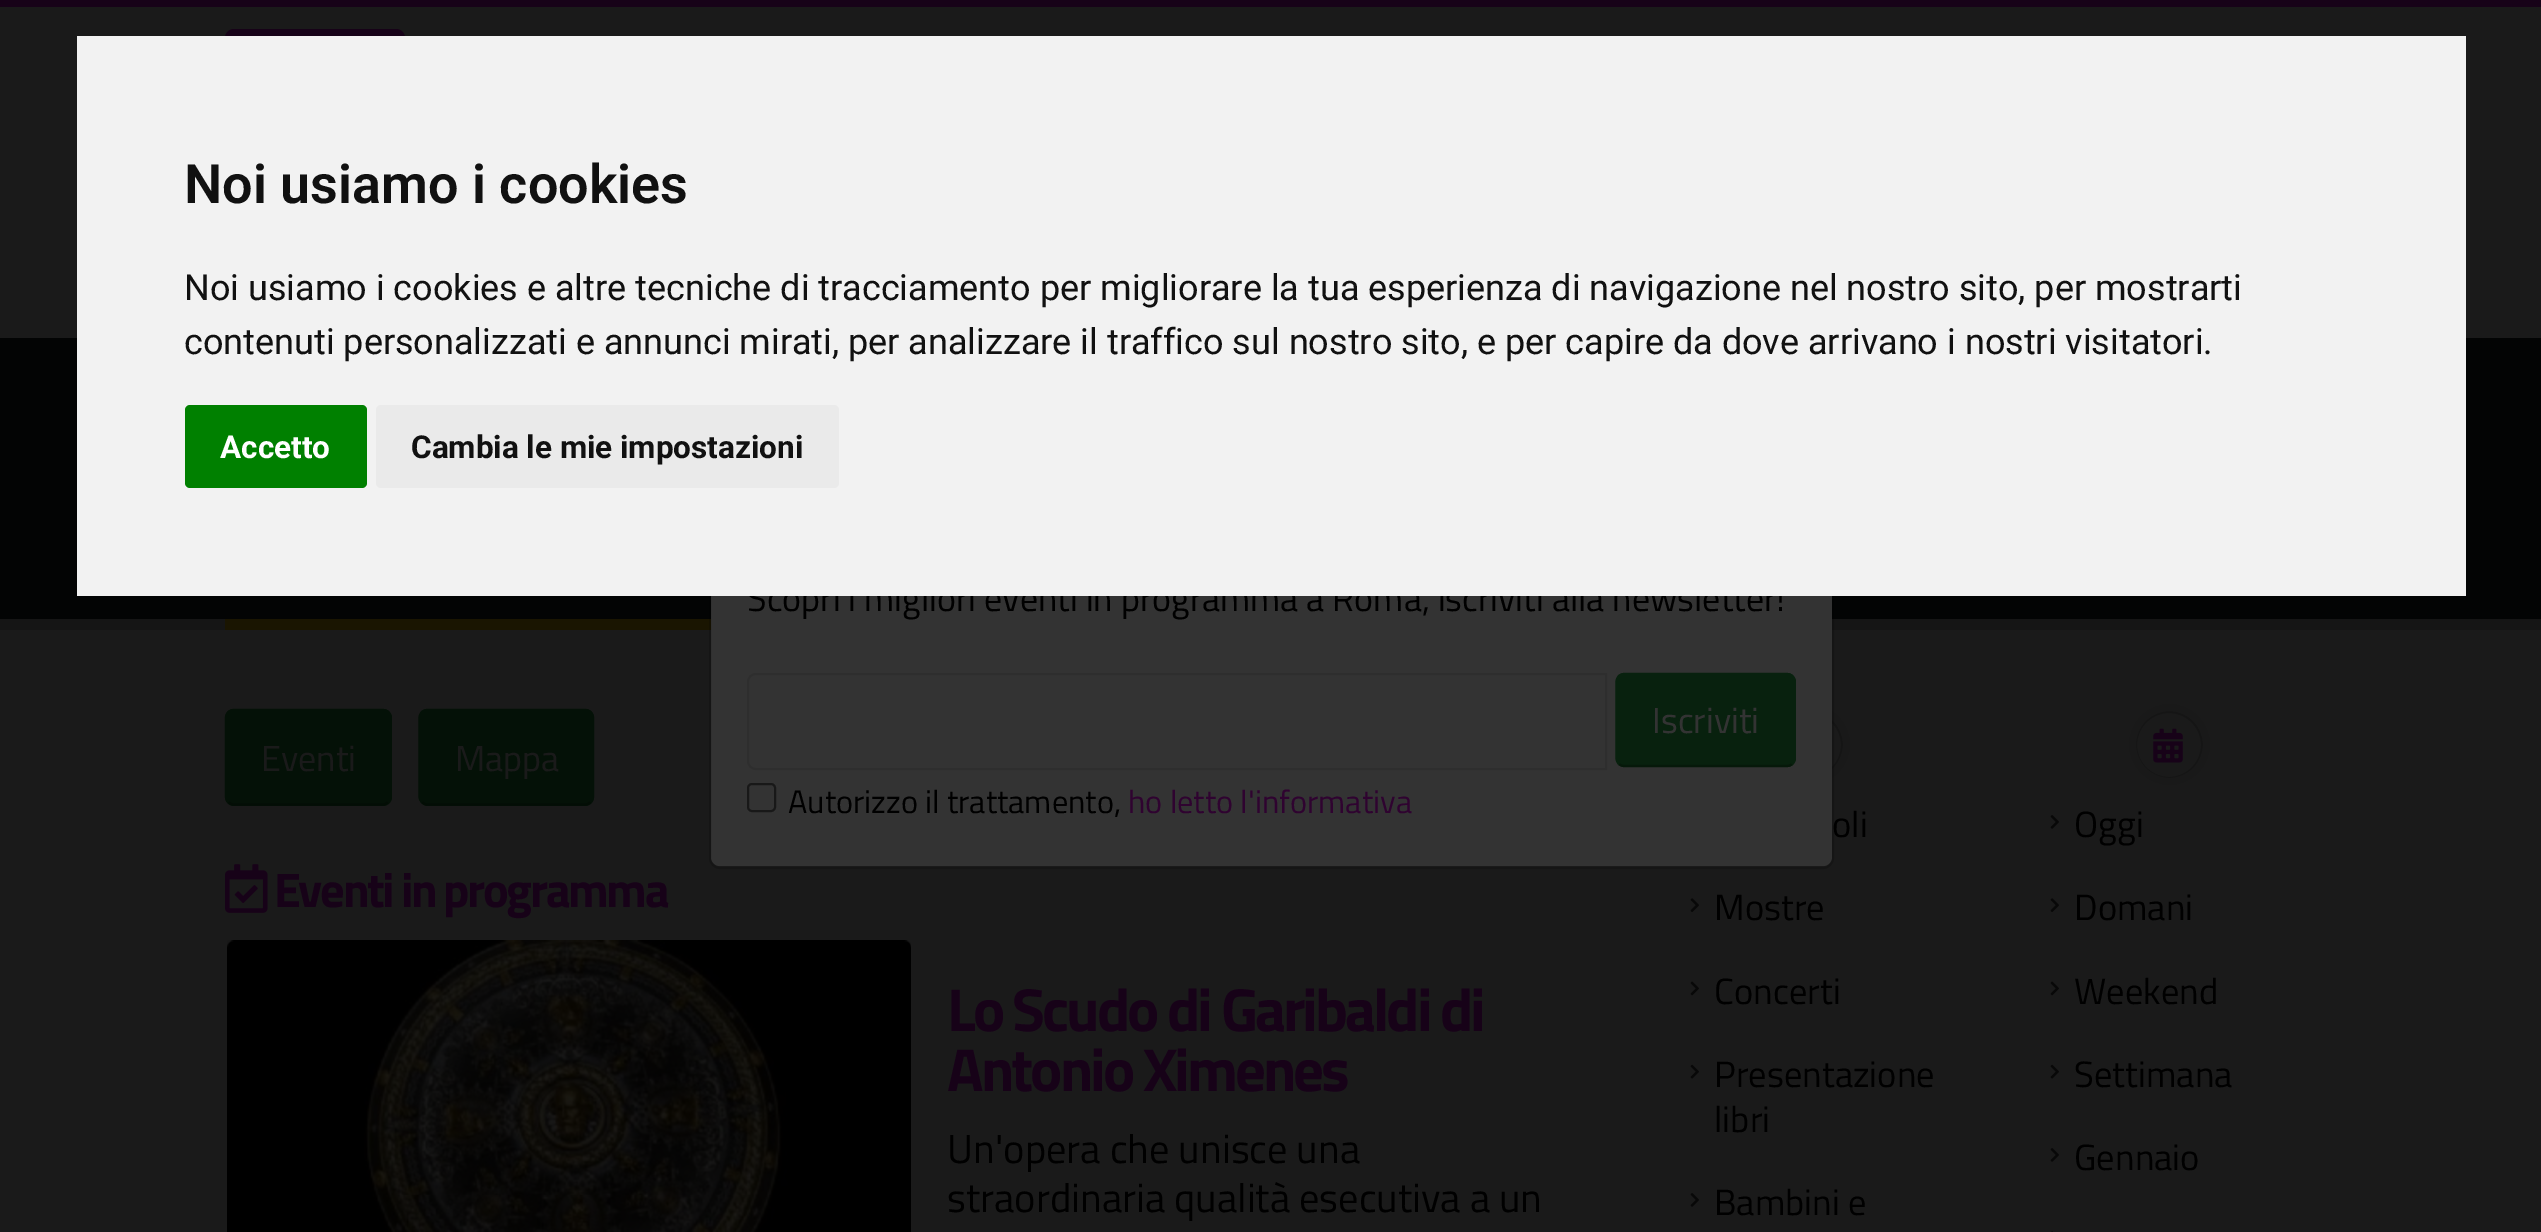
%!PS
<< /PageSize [2541 1232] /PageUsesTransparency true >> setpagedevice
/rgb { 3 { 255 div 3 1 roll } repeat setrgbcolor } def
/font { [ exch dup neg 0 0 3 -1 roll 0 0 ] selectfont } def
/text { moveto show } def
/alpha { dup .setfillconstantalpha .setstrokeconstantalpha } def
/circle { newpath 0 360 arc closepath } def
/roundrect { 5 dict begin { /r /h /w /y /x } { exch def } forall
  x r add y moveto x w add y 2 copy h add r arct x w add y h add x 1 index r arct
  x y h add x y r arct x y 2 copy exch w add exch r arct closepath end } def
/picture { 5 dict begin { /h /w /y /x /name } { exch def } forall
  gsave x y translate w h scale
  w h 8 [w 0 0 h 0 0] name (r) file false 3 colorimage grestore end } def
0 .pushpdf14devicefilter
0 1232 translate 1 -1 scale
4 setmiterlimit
26 26 26 rgb
0 0 2541 1232 rectfill
23 2 24 rgb
0 0 2541 7 rectfill
225 29 180 61 9 roundrect fill
3 4 4 rgb
0 338 2541 281 rectfill
21 21 21 rgb
0 619 2541 11 rectfill
2 setlinewidth
1809 745 33 circle stroke
25 25 25 rgb
7 setlinewidth
1809.5 744.5 37 circle stroke
51 51 51 rgb
711 367 1121 499 9 roundrect fill
26 21 1 rgb
225 619 486 11 rectfill
4 17 7 rgb
225 709 167 97 9 roundrect fill
3 13 5 rgb
2.2 setlinewidth
388 802 moveto -1.5 1.5 -3.5 2.5 -5.5 2.5 rcurveto -148.5 0 rlineto -2 0 -4 -1 -5.5 -2.5 rcurveto stroke
4 17 7 rgb
228.5 802 moveto -1.5 -1.5 -2.5 -3.5 -2.5 -5.5 rcurveto 0 -78.5 rlineto 0 -2.5 1 -4.5 2.5 -6 rcurveto 1.5 -1.5 3.5 -2 5.5 -2 rcurveto 148.5 0 rlineto 2 0 4 0.5 5.5 2 rcurveto 1.5 1.5 2.5 3.5 2.5 6 rcurveto 0 78.5 rlineto 0 2 -1 4 -2.5 5.5 rcurveto stroke
419 709 175 97 9 roundrect fill
3 13 5 rgb
590.5 802 moveto -1.5 1.5 -3.5 2.5 -5.5 2.5 rcurveto -157.5 0 rlineto -2 0 -4 -1 -5.5 -2.5 rcurveto stroke
4 17 7 rgb
422 802 moveto -1.5 -1.5 -2.5 -3.5 -2.5 -5.5 rcurveto 0 -78.5 rlineto 0 -2.5 1 -4.5 2.5 -6 rcurveto 1.5 -1.5 3.5 -2 5.5 -2 rcurveto 157.5 0 rlineto 2 0 4 0.5 5.5 2 rcurveto 1.5 1.5 2.5 3.5 2.5 6 rcurveto 0 78.5 rlineto 0 2 -1 4 -2.5 5.5 rcurveto stroke
(img_01.rgb) 225 864 43 49 picture
(img_02.rgb) 227 940 684 292 picture
(img_03.rgb) 1690 898 9 14 picture
(img_04.rgb) 1690 981 9 15 picture
(img_05.rgb) 1690 1064 9 15 picture
(img_06.rgb) 1690 1193 9 14 picture
21 21 21 rgb
2 setlinewidth
2169 745 33 circle stroke
(img_07.rgb) 2153 728 30 35 picture
25 25 25 rgb
7 setlinewidth
2169.5 744.5 37 circle stroke
(img_06.rgb) 2050 815 9 14 picture
(img_03.rgb) 2050 898 9 14 picture
(img_04.rgb) 2050 981 9 15 picture
(img_05.rgb) 2050 1064 9 15 picture
(img_06.rgb) 2050 1148 9 14 picture
(img_08.rgb) 2051 1231 2 1 picture
/TitilliumWeb-Regular 36 font
26 26 26 rgb
(Eventi) 261 771 text
(Mappa) 455 771 text
/TitilliumWeb-Bold 48.5 font
23 2 24 rgb
274 907 moveto -2.4 0 (Eventi in programma) ashow
/TitilliumWeb-Bold 60.75 font
947 1031 moveto -3 0 (Lo Scudo di Garibaldi di) ashow
947 1091 moveto -3 0 (Antonio Ximenes) ashow
/TitilliumWeb-Regular 40.5 font
0 0 0 rgb
(Un'opera che unisce una) 947 1163 text
(straordinaria qualità esecutiva a un) 947 1212 text
/TitilliumWeb-Regular 36.5 font
(oli) 1832 837 text
0.2 alpha
2 setlinewidth
710 366 1123 502 10 roundrect stroke
/TitilliumWeb-Regular 36 font
1 alpha
(Scopri i migliori eventi in programma a Roma, iscriviti alla newsletter!) 747 611 text
242 242 242 rgb
77 36 2389 560 rectfill
234 234 234 rgb
376 405 463 83 5 roundrect fill
/Roboto-Bold 31.5 font
17 17 17 rgb
(Cambia le mie impostazioni) 411 458 text
0 128 0 rgb
185 405 182 83 5 roundrect fill
255 255 255 rgb
(Accetto) 220 458 text
/Roboto-Regular 36 font
17 17 17 rgb
(contenuti personalizzati e annunci mirati, per analizzare il traffico sul nostro sito, e per capire da dove arrivano i nostri visitatori.) 184 354 text
(Noi usiamo i cookies e altre tecniche di tracciamento per migliorare la tua esperienza di navigazione nel nostro sito, per mostrarti) 184 300 text
/Roboto-SemiBold 54 font
(Noi usiamo i cookies) 184 203 text
/TitilliumWeb-Regular 32.4 font
47 3 48 rgb
(ho letto l'informativa) 1128 813 text
0 0 0 rgb
(Autorizzo il trattamento,) 788 813 text
24 24 24 rgb
748 784 27 27 4 roundrect stroke
46 46 46 rgb
756 674 moveto 850 0 rlineto 0 95 rlineto -850 0 rlineto -4.5 0 -8 -3.5 -8 -8 rcurveto 0 -79 rlineto 0 -4.5 3.5 -8 8 -8 rcurveto closepath stroke
8 33 14 rgb
1616 673 180 94 9 roundrect fill
6 25 10 rgb
2.2 setlinewidth
1792 764 moveto -1.5 1.5 -3.5 2 -5.5 2 rcurveto -162 0 rlineto -2 0 -4 -0.5 -5.5 -2 rcurveto stroke
8 33 14 rgb
1619 764 moveto -1.5 -1.5 -2.5 -3.5 -2.5 -6 rcurveto 0 -76 rlineto 0 -2.5 1 -4.5 2.5 -6 rcurveto 1.5 -1.5 3.5 -2 5.5 -2 rcurveto 162 0 rlineto 2 0 4 0.5 5.5 2 rcurveto 1.5 1.5 2.5 3.5 2.5 6 rcurveto 0 76 rlineto 0 2.5 -1 4.5 -2.5 6 rcurveto stroke
/TitilliumWeb-Regular 36 font
51 51 51 rgb
(Iscriviti) 1652 733 text
/TitilliumWeb-Regular 36.5 font
0 0 0 rgb
(Mostre) 1714 920 text
(Concerti) 1714 1004 text
(Presentazione) 1714 1087 text
(libri) 1714 1132 text
(Bambini e) 1714 1215 text
(Oggi) 2074 837 text
(Domani) 2074 920 text
(Weekend) 2074 1004 text
(Settimana) 2074 1087 text
(Gennaio) 2074 1170 text
.poppdf14devicefilter showpage
